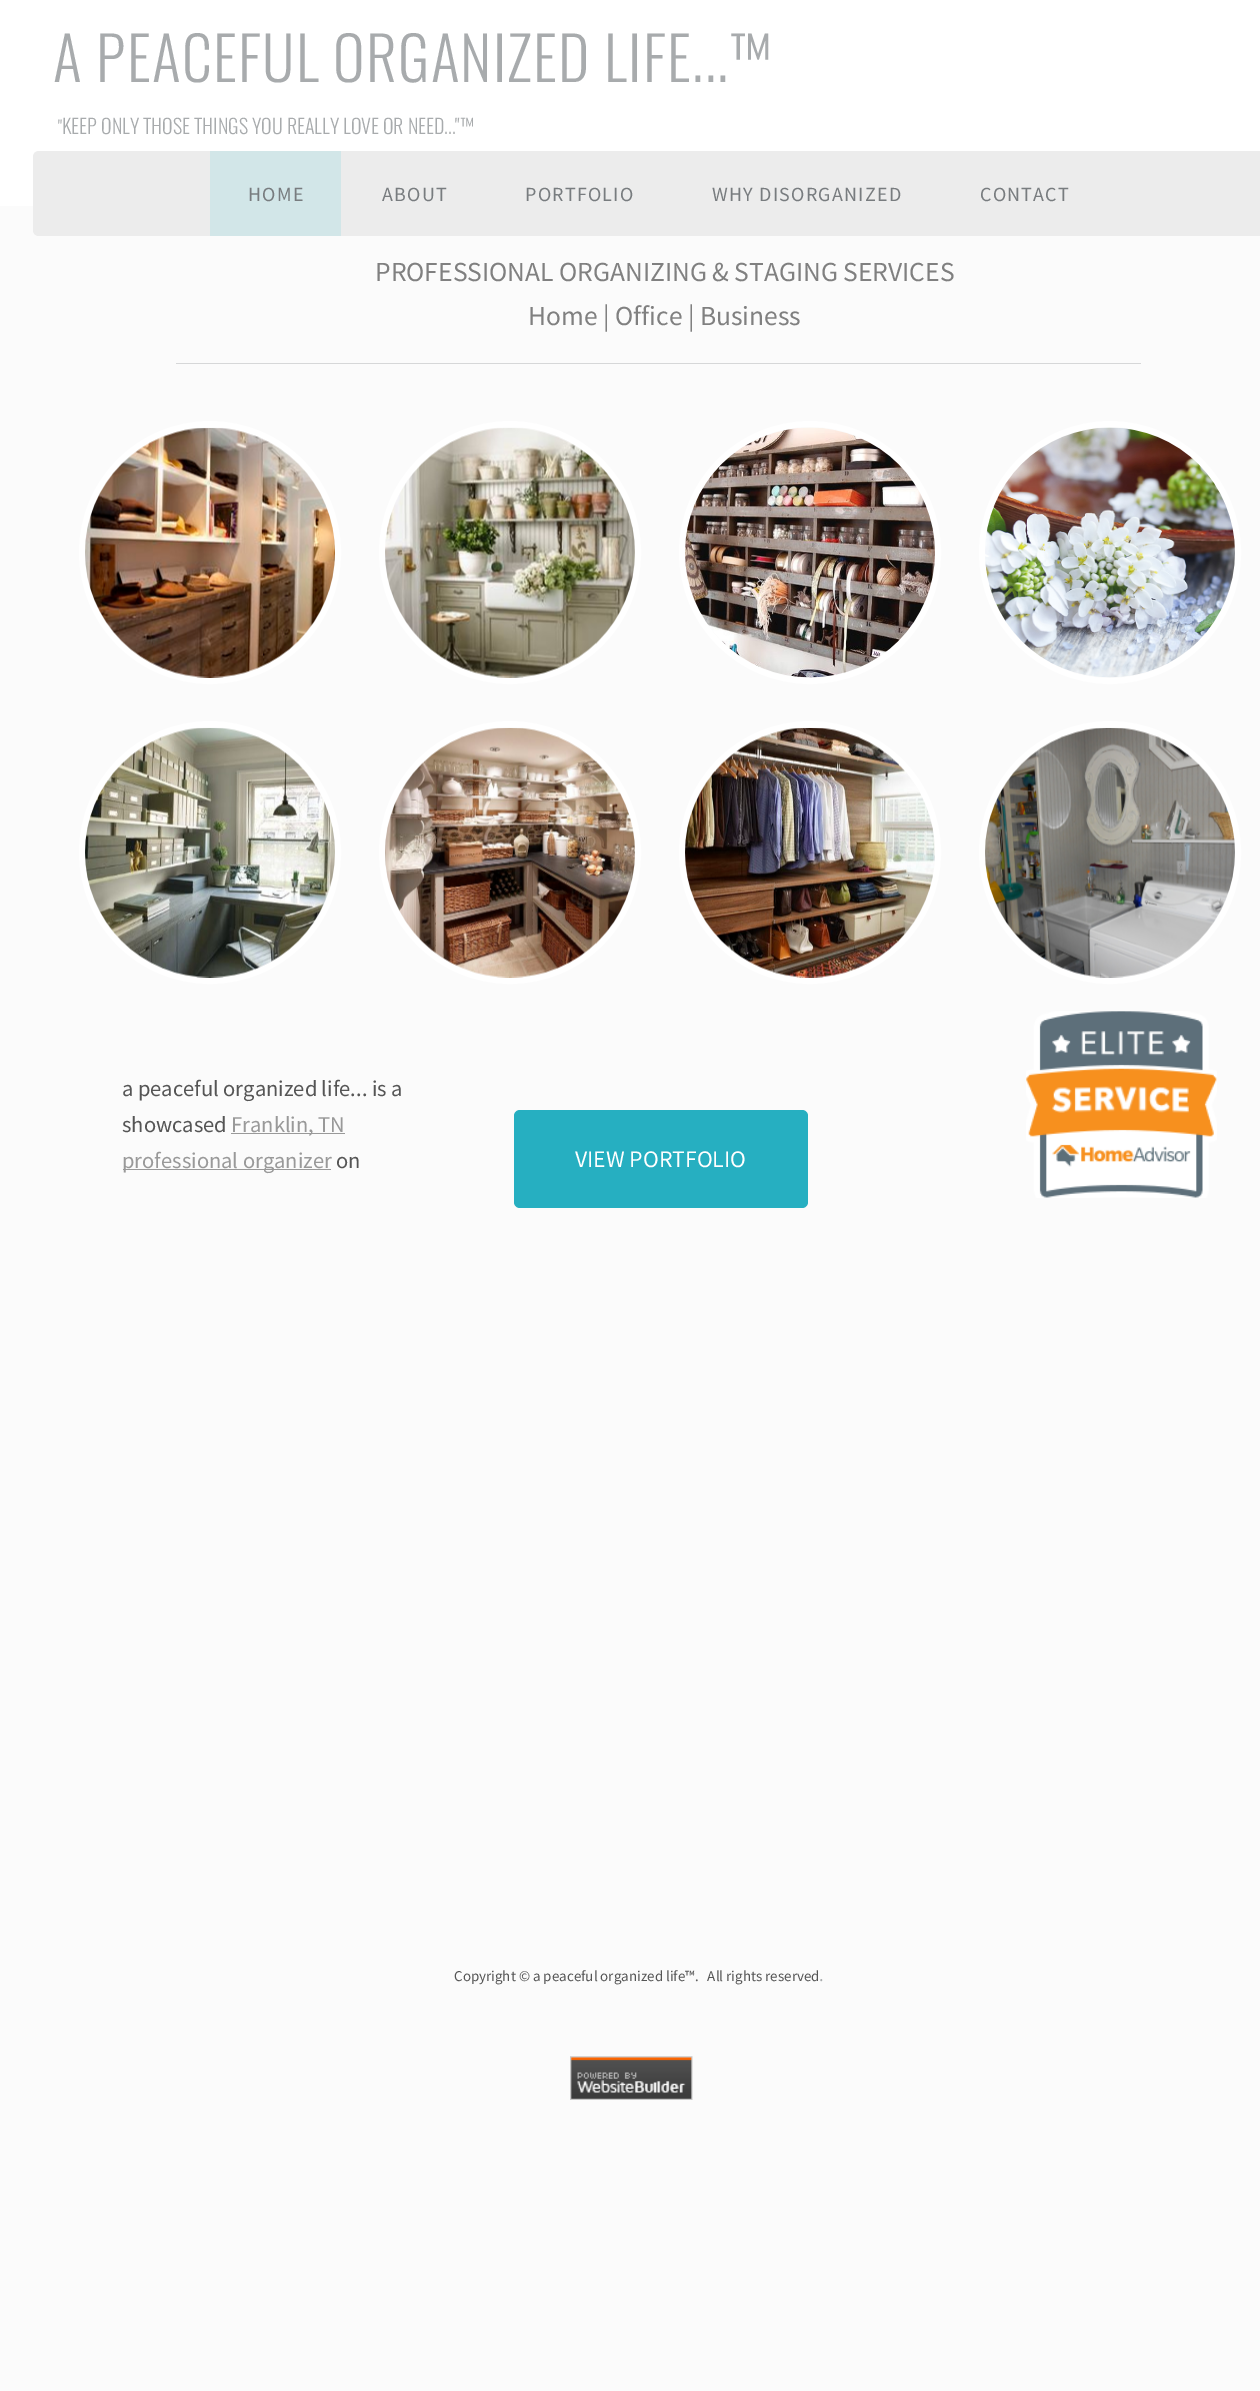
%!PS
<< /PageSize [1260 2391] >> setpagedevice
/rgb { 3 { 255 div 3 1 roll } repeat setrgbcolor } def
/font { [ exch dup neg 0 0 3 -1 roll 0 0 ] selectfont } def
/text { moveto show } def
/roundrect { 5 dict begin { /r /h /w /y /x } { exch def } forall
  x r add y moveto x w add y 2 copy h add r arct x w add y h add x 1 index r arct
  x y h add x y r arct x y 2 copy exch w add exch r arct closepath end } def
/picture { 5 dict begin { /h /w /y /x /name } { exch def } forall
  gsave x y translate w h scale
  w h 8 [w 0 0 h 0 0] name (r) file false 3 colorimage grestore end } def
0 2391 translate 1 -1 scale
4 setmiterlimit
251 251 251 rgb
0 0 1260 2391 rectfill
255 255 255 rgb
0 0 1260 206 rectfill
236 236 236 rgb
39 151 moveto 1221 0 rlineto 0 85 rlineto -1221 0 rlineto -3.5 0 -6 -2.5 -6 -6 rcurveto 0 -73 rlineto 0 -3.5 2.5 -6 6 -6 rcurveto closepath fill
210 230 232 rgb
210 151 131 85 rectfill
214 215 216 rgb
176 363 965 1 rectfill
255 255 255 rgb
6 setlinewidth
82 424 256 257 128 roundrect stroke
(img_01.rgb) 85 428 250 250 picture
382 424 256 257 128 roundrect stroke
(img_02.rgb) 385 428 250 250 picture
682 424 256 257 128 roundrect stroke
(img_03.rgb) 685 427 250 251 picture
982 424 256 257 128 roundrect stroke
(img_04.rgb) 985 427 250 251 picture
82 724 256 257 128 roundrect stroke
(img_05.rgb) 85 728 250 250 picture
382 724 256 257 128 roundrect stroke
(img_06.rgb) 385 728 250 250 picture
682 724 256 257 128 roundrect stroke
(img_07.rgb) 685 728 250 250 picture
982 724 256 257 128 roundrect stroke
(img_08.rgb) 985 728 250 250 picture
153 153 153 rgb
231 1133 114 1 rectfill
123 1169 208 1 rectfill
38 175 193 rgb
514 1110 294 98 6 roundrect fill
(img_09.rgb) 1026 1011 191 187 picture
(img_10.rgb) 570 2056 123 44 picture
/Oswald-Light 60 font
168 171 173 rgb
53 82 moveto 1.25 0 (A PEACEFUL ORGANIZED LIFE...™) ashow
/Oswald-Light 18 font
(") 58 134 text
/Oswald-Light 20 font
(KEEP ONLY THOSE THINGS YOU REALLY LOVE OR NEED..."™) 62 134 text
/SourceSansPro-Regular 20 font
120 124 127 rgb
248 201 moveto 1.25 0 (HOME) ashow
382 201 moveto 1.25 0 (ABOUT) ashow
525 201 moveto 1.25 0 (PORTFOLIO) ashow
712 201 moveto 1.25 0 (WHY DISORGANIZED) ashow
980 201 moveto 1.25 0 (CONTACT) ashow
/SourceSansPro-Regular 27.5 font
128 128 128 rgb
(PROFESSIONAL ORGANIZING & STAGING SERVICES) 375 281 text
(Home | Office | Business) 528 325 text
/SourceSansPro-Regular 22.5 font
85 85 85 rgb
(a peaceful organized life... is a) 122 1096 text
(showcased) 122 1132 text
153 153 153 rgb
(Franklin, TN) 231 1132 text
(professional organizer) 122 1168 text
85 85 85 rgb
(on) 336 1168 text
/SourceSansPro-Regular 23.75 font
255 255 255 rgb
(VIEW PORTFOLIO) 575 1167 text
/SourceSansPro-Regular 15 font
85 85 85 rgb
(Copyright © a peaceful organized life™.   All rights reserved) 454 1981 text
/SourceSansPro-Regular 18 font
168 171 173 rgb
(.) 819 1981 text
showpage
